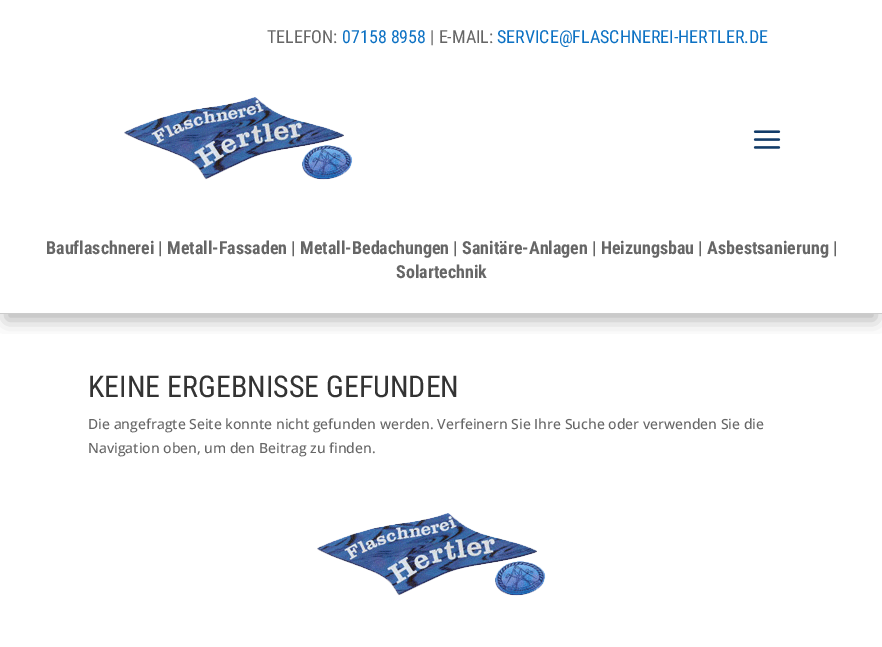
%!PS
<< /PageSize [882 647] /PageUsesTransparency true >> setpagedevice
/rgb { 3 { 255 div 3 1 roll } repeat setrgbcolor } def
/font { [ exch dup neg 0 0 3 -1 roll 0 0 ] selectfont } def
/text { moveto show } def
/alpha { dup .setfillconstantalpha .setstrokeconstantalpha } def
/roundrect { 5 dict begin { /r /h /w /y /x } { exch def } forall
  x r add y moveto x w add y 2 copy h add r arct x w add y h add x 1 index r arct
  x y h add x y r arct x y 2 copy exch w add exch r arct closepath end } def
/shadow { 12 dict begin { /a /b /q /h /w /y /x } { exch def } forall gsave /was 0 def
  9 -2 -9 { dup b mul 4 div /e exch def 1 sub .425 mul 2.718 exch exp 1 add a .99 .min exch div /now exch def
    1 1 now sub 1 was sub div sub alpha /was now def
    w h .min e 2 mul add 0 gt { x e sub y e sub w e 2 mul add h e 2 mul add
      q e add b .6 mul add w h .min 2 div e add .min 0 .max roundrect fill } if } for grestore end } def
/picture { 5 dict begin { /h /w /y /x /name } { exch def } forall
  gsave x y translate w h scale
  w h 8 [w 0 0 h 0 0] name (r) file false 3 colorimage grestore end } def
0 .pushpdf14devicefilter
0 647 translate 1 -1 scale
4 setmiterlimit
255 255 255 rgb
0 0 882 647 rectfill
gsave
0 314 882 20 rectclip
0 0 0 rgb
6 18 870 302 0 9 0.3 shadow
grestore
204 204 204 rgb
0 313 882 1 rectfill
(img_01.rgb) 124 97 229 83 picture
(img_02.rgb) 753 130 28 19 picture
(img_01.rgb) 317 513 229 83 picture
/RobotoCondensed-Regular 18 font
102 102 102 rgb
(TELEFON:) 267 43 text
12 113 195 rgb
(07158 8958) 342 43 text
102 102 102 rgb
(| E-MAIL:) 430 43 text
12 113 195 rgb
(SERVICE@FLASCHNEREI-HERTLER.DE) 497 43 text
/RobotoCondensed-Bold 18 font
102 102 102 rgb
(Bauflaschnerei | Metall-Fassaden | Metall-Bedachungen | Sanitäre-Anlagen | Heizungsbau | Asbestsanierung |) 46 254 text
(Solartechnik) 396 278 text
/RobotoCondensed-Regular 30 font
51 51 51 rgb
(KEINE ERGEBNISSE GEFUNDEN) 88 397 text
/OpenSans-Medium 14 font
102 102 102 rgb
(Die angefragte Seite konnte nicht gefunden werden. Verfeinern Sie Ihre Suche oder verwenden Sie die) 88 429 text
(Navigation oben, um den Beitrag zu finden.) 88 453 text
.poppdf14devicefilter showpage
